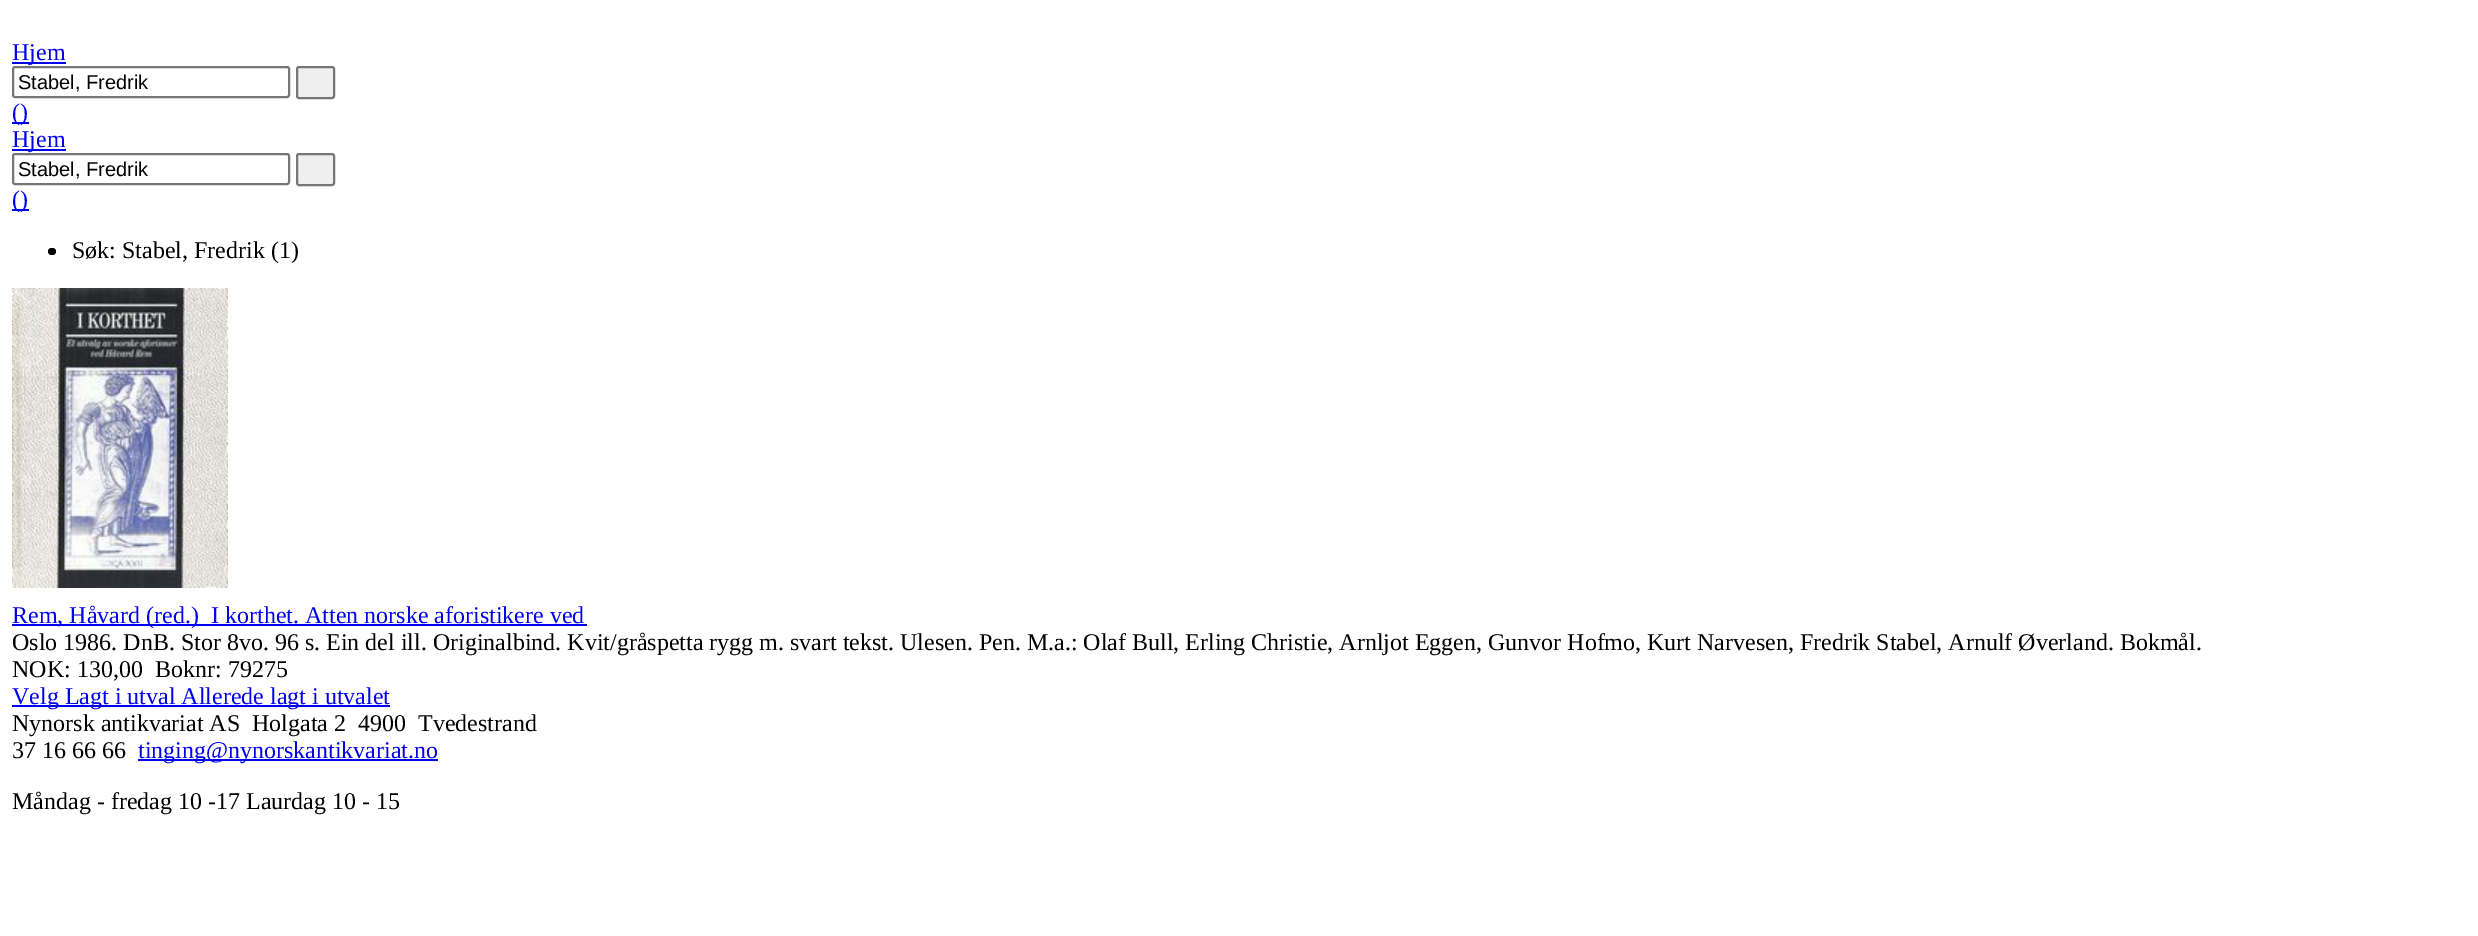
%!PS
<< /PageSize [2478 936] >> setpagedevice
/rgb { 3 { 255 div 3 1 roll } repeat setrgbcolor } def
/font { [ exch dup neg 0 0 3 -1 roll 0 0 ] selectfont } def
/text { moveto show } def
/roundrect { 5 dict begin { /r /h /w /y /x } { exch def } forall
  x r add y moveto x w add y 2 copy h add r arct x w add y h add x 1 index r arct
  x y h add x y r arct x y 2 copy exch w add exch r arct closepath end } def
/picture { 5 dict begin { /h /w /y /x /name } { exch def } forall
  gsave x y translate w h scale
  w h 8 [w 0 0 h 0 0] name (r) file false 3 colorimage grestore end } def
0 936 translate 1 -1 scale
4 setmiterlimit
255 255 255 rgb
0 0 2478 936 rectfill
0 0 238 rgb
12 62 54 2 rectfill
118 118 118 rgb
2 setlinewidth
13 67 276 30 2 roundrect stroke
239 239 239 rgb
297 67 37 31 2 roundrect gsave fill grestore
118 118 118 rgb
stroke
0 0 238 rgb
12 122 17 2 rectfill
12 149 54 2 rectfill
118 118 118 rgb
13 154 276 30 2 roundrect stroke
239 239 239 rgb
297 154 37 31 2 roundrect gsave fill grestore
118 118 118 rgb
stroke
0 0 238 rgb
12 209 17 2 rectfill
0 0 0 rgb
48 248 8 7 3.5 roundrect fill
(img_01.rgb) 12 288 216 300 picture
0 0 238 rgb
12 624 575 2 rectfill
12 705 378 2 rectfill
138 759 300 2 rectfill
/LiberationSerif-Regular 24 font
(Hjem) 12 60 text
/LiberationSans-Regular 20 font
0 0 0 rgb
(Stabel, Fredrik) 18 89 text
/LiberationSerif-Regular 24 font
0 0 238 rgb
(\(\)) 12 120 text
(Hjem) 12 147 text
/LiberationSans-Regular 20 font
0 0 0 rgb
(Stabel, Fredrik) 18 176 text
/LiberationSerif-Regular 24 font
0 0 238 rgb
(\(\)) 12 207 text
0 0 0 rgb
(Søk: Stabel, Fredrik \(1\)) 72 258 text
0 0 238 rgb
(Rem, Håvard \(red.\)) 12 623 text
(I korthet. Atten norske aforistikere ved) 211 623 text
0 0 0 rgb
(Oslo 1986. DnB. Stor 8vo. 96 s. Ein del ill. Originalbind. Kvit/gråspetta rygg m. svart tekst. Ulesen. Pen. M.a.: Olaf Bull, Erling Christie, Arnljot Eggen, Gunvor Hofmo, Kurt Narvesen, Fredrik Stabel, Arnulf Øverland. Bokmål.) 12 650 text
(NOK: 130,00) 12 677 text
(Boknr: 79275) 155 677 text
0 0 238 rgb
(Velg Lagt i utval Allerede lagt i utvalet) 12 704 text
0 0 0 rgb
(Nynorsk antikvariat AS) 12 731 text
(Holgata 2) 252 731 text
(4900) 358 731 text
(Tvedestrand) 418 731 text
(37 16 66 66) 12 758 text
0 0 238 rgb
(tinging@nynorskantikvariat.no) 138 758 text
0 0 0 rgb
(Måndag - fredag 10 -17 Laurdag 10 - 15) 12 809 text
showpage
